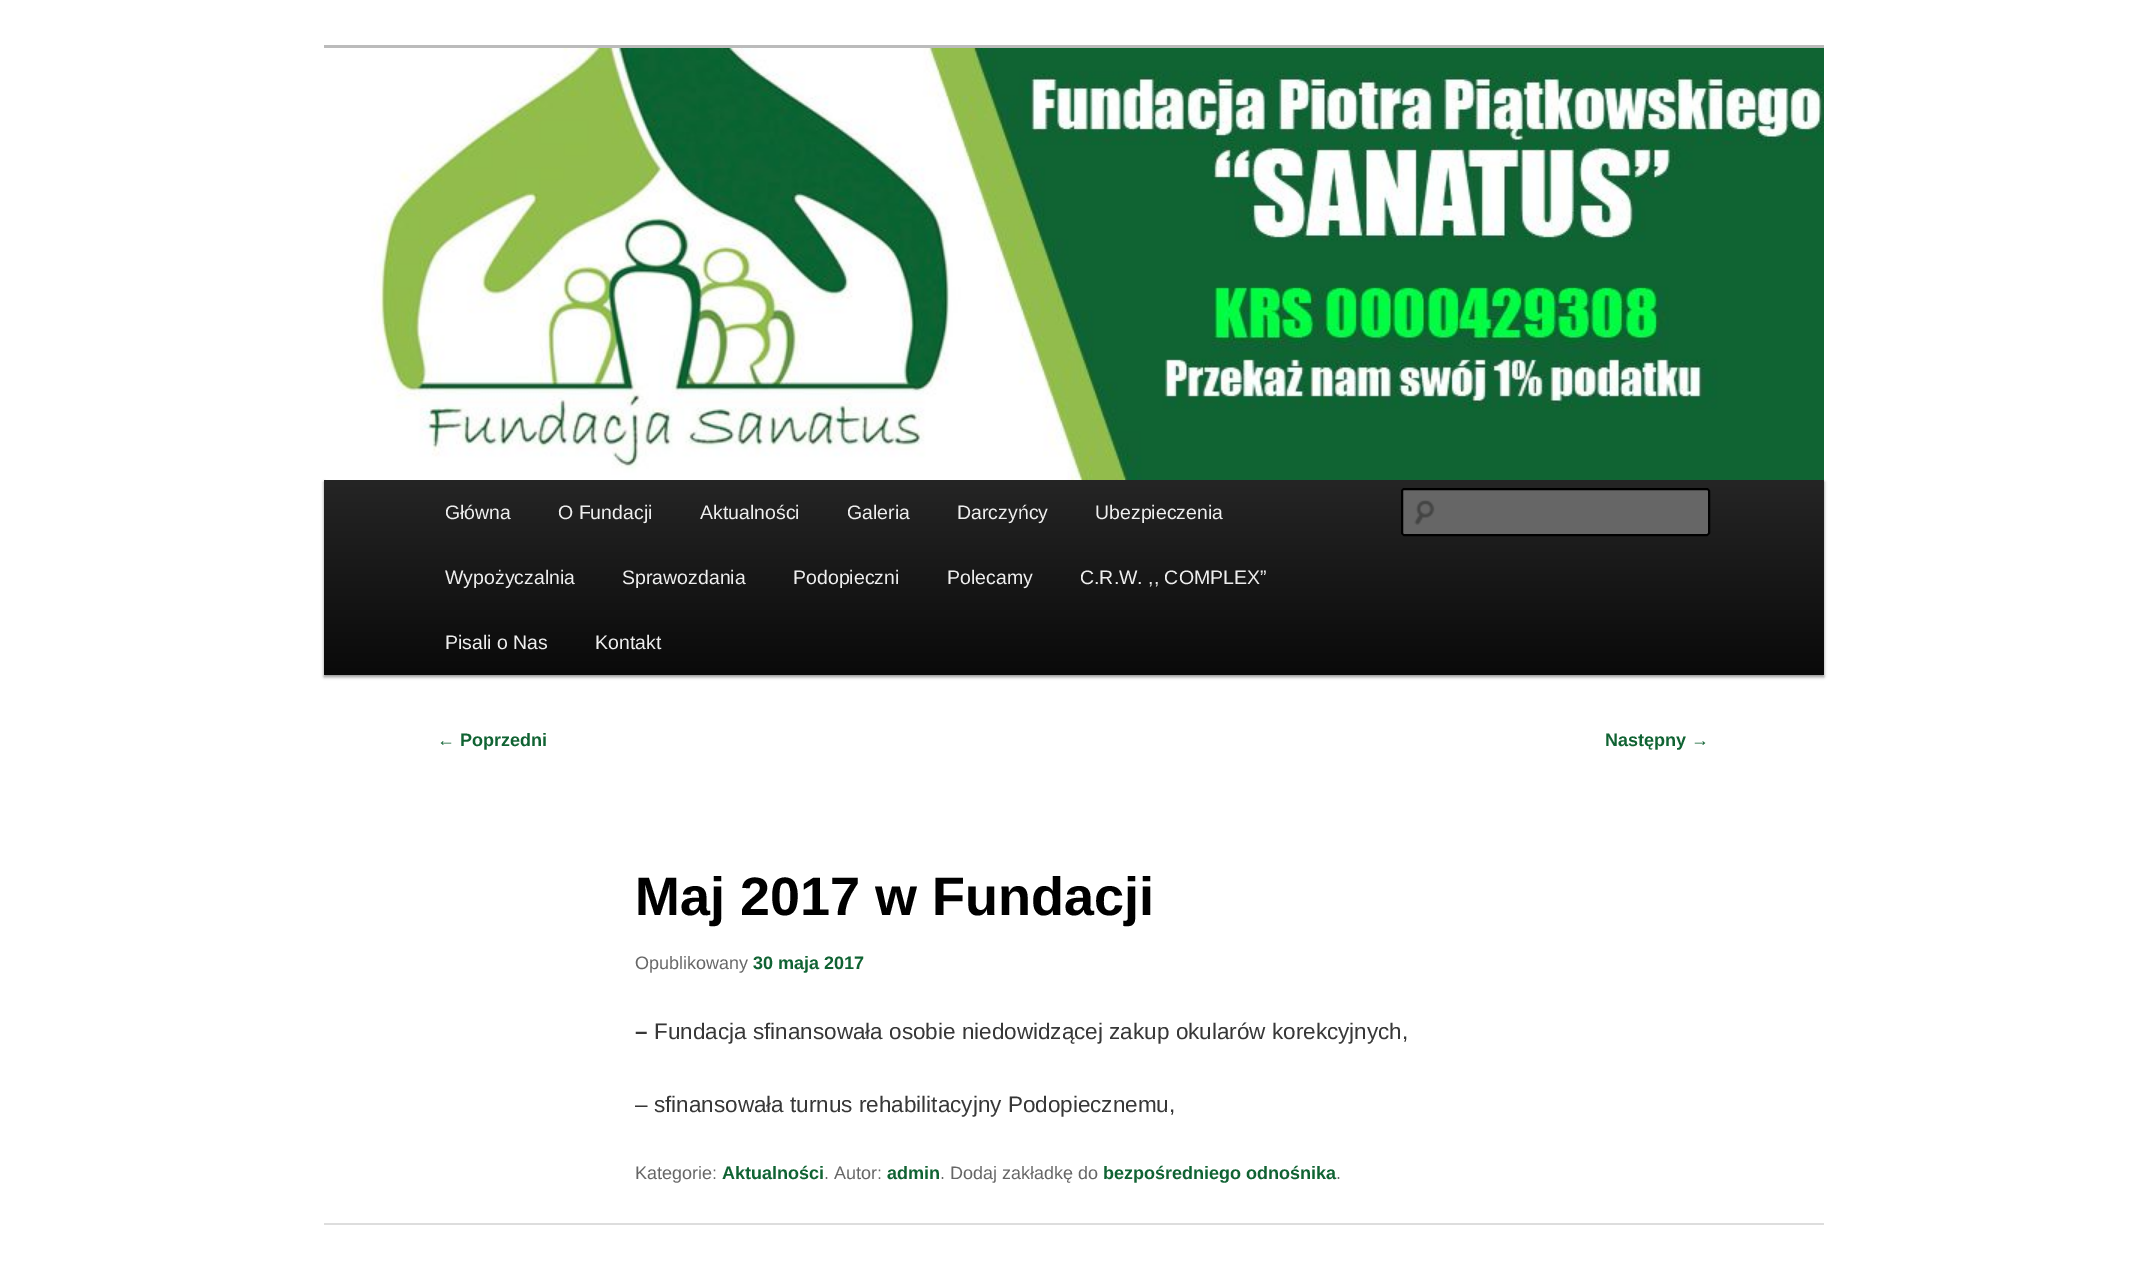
%!PS
<< /PageSize [2146 1276] /PageUsesTransparency true >> setpagedevice
/rgb { 3 { 255 div 3 1 roll } repeat setrgbcolor } def
/font { [ exch dup neg 0 0 3 -1 roll 0 0 ] selectfont } def
/text { moveto show } def
/alpha { dup .setfillconstantalpha .setstrokeconstantalpha } def
/roundrect { 5 dict begin { /r /h /w /y /x } { exch def } forall
  x r add y moveto x w add y 2 copy h add r arct x w add y h add x 1 index r arct
  x y h add x y r arct x y 2 copy exch w add exch r arct closepath end } def
/shadow { 12 dict begin { /a /b /q /h /w /y /x } { exch def } forall gsave /was 0 def
  9 -2 -9 { dup b mul 4 div /e exch def 1 sub .425 mul 2.718 exch exp 1 add a .99 .min exch div /now exch def
    1 1 now sub 1 was sub div sub alpha /was now def
    w h .min e 2 mul add 0 gt { x e sub y e sub w e 2 mul add h e 2 mul add
      q e add b .6 mul add w h .min 2 div e add .min 0 .max roundrect fill } if } for grestore end } def
/picture { 5 dict begin { /h /w /y /x /name } { exch def } forall
  gsave x y translate w h scale
  w h 8 [w 0 0 h 0 0] name (r) file false 3 colorimage grestore end } def
0 .pushpdf14devicefilter
0 1276 translate 1 -1 scale
4 setmiterlimit
255 255 255 rgb
0 0 2146 1276 rectfill
187 187 187 rgb
324 45 1500 3 rectfill
0 0 0 rgb
324 482 1500 195 0 1.5 0.4 shadow
(img_01.rgb) 326 48 1498 432 picture
gsave 324 480 moveto 1500 0 rlineto 0 195 rlineto -1500 0 rlineto closepath clip newpath
<< /ShadingType 2 /ColorSpace /DeviceRGB /Coords [1074 480 1074 675] /Extend [true true] /Function << /FunctionType 2 /Domain [0 1] /C0 [0.145 0.145 0.145] /C1 [0.039 0.039 0.039] /N 1 >> >> shfill grestore
102 102 102 rgb
1401 488 309 48 3 roundrect fill
(img_02.rgb) 1414 500 21 25 picture
0 0 0 rgb
2 setlinewidth
1402 489 307 46 2 roundrect stroke
221 221 221 rgb
324 1223 1500 2 rectfill
/LiberationSans-Regular 19.5 font
238 238 238 rgb
(Główna) 445 519 text
(O Fundacji) 558 519 text
(Aktualności) 700 519 text
(Galeria) 847 519 text
(Darczyńcy) 957 519 text
(Ubezpieczenia) 1095 519 text
(Wypożyczalnia) 445 584 text
(Sprawozdania) 622 584 text
(Podopieczni) 793 584 text
(Polecamy) 947 584 text
(C.R.W. ,, COMPLEX”) 1080 584 text
(Pisali o Nas) 445 649 text
(Kontakt) 595 649 text
/LiberationSans-Regular 18 font
16 99 51 rgb
(←) 437 746 text
/LiberationSans-Bold 18 font
(Poprzedni) 460 746 text
(Następny) 1605 746 text
/LiberationSans-Regular 18 font
(→) 1691 746 text
/LiberationSans-Bold 54 font
0 0 0 rgb
(Maj 2017 w Fundacji) 635 915 text
/LiberationSans-Regular 18 font
102 102 102 rgb
(Opublikowany) 635 969 text
/LiberationSans-Bold 18 font
16 99 51 rgb
(30 maja 2017) 753 969 text
/LiberationSans-Bold 22.5 font
55 55 55 rgb
(–) 635 1039 text
/LiberationSans-Regular 22.5 font
(Fundacja sfinansowała osobie niedowidzącej zakup okularów korekcyjnych,) 654 1039 text
(– sfinansowała turnus rehabilitacyjny Podopiecznemu,) 635 1112 text
/LiberationSans-Regular 18 font
102 102 102 rgb
(Kategorie:) 635 1179 text
/LiberationSans-Bold 18 font
16 99 51 rgb
(Aktualności) 722 1179 text
/LiberationSans-Regular 18 font
102 102 102 rgb
(. Autor:) 824 1179 text
/LiberationSans-Bold 18 font
16 99 51 rgb
(admin) 887 1179 text
/LiberationSans-Regular 18 font
102 102 102 rgb
(. Dodaj zakładkę do) 940 1179 text
/LiberationSans-Bold 18 font
16 99 51 rgb
(bezpośredniego odnośnika) 1103 1179 text
/LiberationSans-Regular 18 font
102 102 102 rgb
(.) 1336 1179 text
.poppdf14devicefilter showpage
